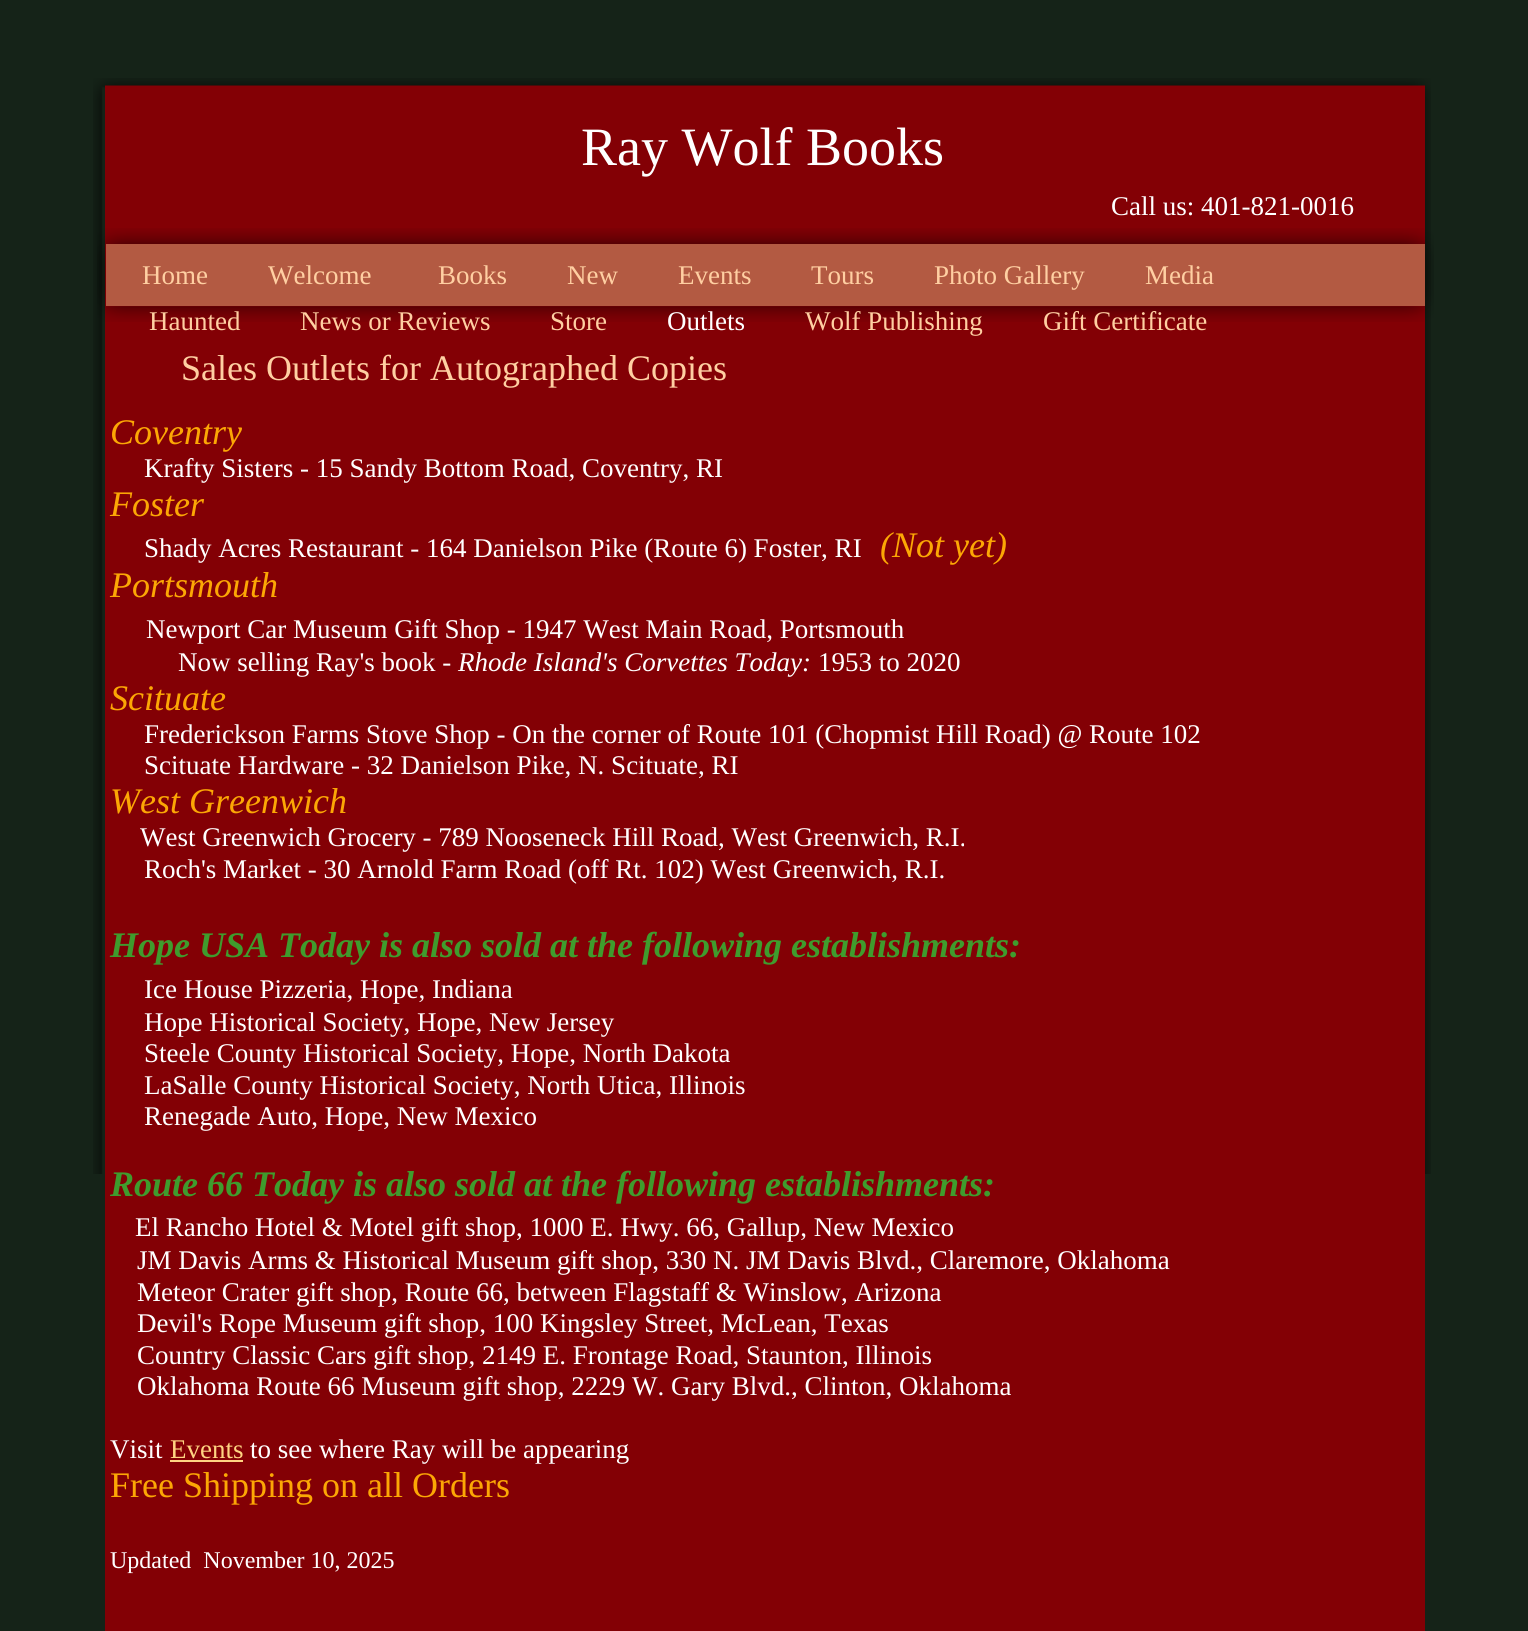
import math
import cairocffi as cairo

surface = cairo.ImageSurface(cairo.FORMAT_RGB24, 1528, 1631)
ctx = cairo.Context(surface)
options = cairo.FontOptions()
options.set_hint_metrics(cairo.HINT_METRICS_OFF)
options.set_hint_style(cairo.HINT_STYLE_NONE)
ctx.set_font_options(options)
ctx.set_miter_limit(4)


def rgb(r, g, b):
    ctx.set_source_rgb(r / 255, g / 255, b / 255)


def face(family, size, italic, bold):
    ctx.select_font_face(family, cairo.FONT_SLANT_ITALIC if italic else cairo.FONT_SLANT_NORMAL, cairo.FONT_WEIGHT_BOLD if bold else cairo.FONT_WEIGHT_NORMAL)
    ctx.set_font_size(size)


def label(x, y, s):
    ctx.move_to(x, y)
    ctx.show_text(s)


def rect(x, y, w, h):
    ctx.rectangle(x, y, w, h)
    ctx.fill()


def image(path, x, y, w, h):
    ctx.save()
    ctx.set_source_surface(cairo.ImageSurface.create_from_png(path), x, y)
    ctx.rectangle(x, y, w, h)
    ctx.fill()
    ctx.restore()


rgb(21, 35, 24)
ctx.paint()
image('image0.png', 93, 78, 1338, 1096)
rgb(131, 0, 5)
rect(105, 86, 1320, 1545)
ctx.set_source_rgba(0.514, 0, 0.016, 0.5)
rect(105, 85, 1320, 1)
face('Liberation Serif', 54, 0, 0)
rgb(255, 255, 255)
label(581, 165, 'Ray Wolf Books')
face('Liberation Serif', 27, 0, 0)
label(1111, 215, 'Call us: 401-821-0016')
image('image1.png', 97, 228, 1337, 94)
rgb(179, 90, 66)
rect(106, 244, 1319, 62)
rgb(255, 207, 162)
label(142, 284, 'Home')
label(268, 284, 'Welcome')
label(438, 284, 'Books')
label(567, 284, 'New')
label(678, 284, 'Events')
label(811, 284, 'Tours')
label(934, 284, 'Photo Gallery')
label(1145, 284, 'Media')
label(149, 330, 'Haunted')
label(300, 330, 'News or Reviews')
label(550, 330, 'Store')
rgb(255, 255, 255)
label(667, 330, 'Outlets')
rgb(255, 207, 162)
label(805, 330, 'Wolf Publishing')
label(1043, 330, 'Gift Certificate')
face('Liberation Serif', 36, 0, 0)
label(181, 380, 'Sales Outlets for Autographed Copies')
face('Liberation Serif', 36, 1, 0)
rgb(252, 167, 5)
label(110, 444, 'Coventry')
face('Liberation Serif', 27, 0, 0)
rgb(255, 255, 255)
label(144, 477, 'Krafty Sisters - 15 Sandy Bottom Road, Coventry, RI')
face('Liberation Serif', 36, 1, 0)
rgb(252, 167, 5)
label(110, 516, 'Foster')
face('Liberation Serif', 27, 0, 0)
rgb(255, 255, 255)
label(144, 557, 'Shady Acres Restaurant - 164 Danielson Pike (Route 6) Foster, RI')
face('Liberation Serif', 36, 1, 0)
rgb(252, 167, 5)
label(880, 557, '(Not yet)')
label(110, 597, 'Portsmouth')
face('Liberation Serif', 27, 0, 0)
rgb(255, 255, 255)
label(146, 638, 'Newport Car Museum Gift Shop - 1947 West Main Road, Portsmouth')
label(178, 671, 'Now selling Ray\'s book -')
face('Liberation Serif', 27, 1, 0)
label(458, 671, 'Rhode Island\'s Corvettes Today:')
face('Liberation Serif', 27, 0, 0)
label(818, 671, '1953 to 2020')
face('Liberation Serif', 36, 1, 0)
rgb(252, 167, 5)
label(110, 710, 'Scituate')
face('Liberation Serif', 27, 0, 0)
rgb(255, 255, 255)
label(144, 743, 'Frederickson Farms Stove Shop - On the corner of Route 101 (Chopmist Hill Road) @ Route 102')
label(144, 774, 'Scituate Hardware - 32 Danielson Pike, N. Scituate, RI')
face('Liberation Serif', 36, 1, 0)
rgb(252, 167, 5)
label(110, 813, 'West Greenwich')
face('Liberation Serif', 27, 0, 0)
rgb(255, 255, 255)
label(140, 846, 'West Greenwich Grocery - 789 Nooseneck Hill Road, West Greenwich, R.I.')
label(144, 878, 'Roch\'s Market - 30 Arnold Farm Road (off Rt. 102) West Greenwich, R.I.')
face('Liberation Serif', 36, 1, 1)
rgb(63, 156, 45)
label(110, 957, 'Hope USA Today is also sold at the following establishments:')
face('Liberation Serif', 27, 0, 0)
rgb(255, 255, 255)
label(144, 998, 'Ice House Pizzeria, Hope, Indiana')
label(144, 1031, 'Hope Historical Society, Hope, New Jersey')
label(144, 1062, 'Steele County Historical Society, Hope, North Dakota')
label(144, 1094, 'LaSalle County Historical Society, North Utica, Illinois')
label(144, 1125, 'Renegade Auto, Hope, New Mexico')
face('Liberation Serif', 36, 1, 1)
rgb(63, 156, 45)
label(110, 1196, 'Route 66 Today is also sold at the following establishments:')
face('Liberation Serif', 27, 0, 0)
rgb(255, 255, 255)
label(135, 1236, 'El Rancho Hotel & Motel gift shop, 1000 E. Hwy. 66, Gallup, New Mexico')
label(137, 1269, 'JM Davis Arms & Historical Museum gift shop, 330 N. JM Davis Blvd., Claremore, Oklahoma')
label(137, 1301, 'Meteor Crater gift shop, Route 66, between Flagstaff & Winslow, Arizona')
label(137, 1332, 'Devil\'s Rope Museum gift shop, 100 Kingsley Street, McLean, Texas')
label(137, 1364, 'Country Classic Cars gift shop, 2149 E. Frontage Road, Staunton, Illinois')
label(137, 1395, 'Oklahoma Route 66 Museum gift shop, 2229 W. Gary Blvd., Clinton, Oklahoma')
label(110, 1458, 'Visit')
rgb(255, 212, 130)
label(170, 1458, 'Events')
rect(170, 1460, 73, 2)
rgb(255, 255, 255)
label(250, 1458, 'to see where Ray will be appearing')
face('Liberation Serif', 36, 0, 0)
rgb(252, 167, 5)
label(110, 1497, 'Free Shipping on all Orders')
face('Liberation Serif', 24, 0, 0)
rgb(255, 255, 255)
label(110, 1568, 'Updated  November 10, 2025')
surface.write_to_png('render.png')
